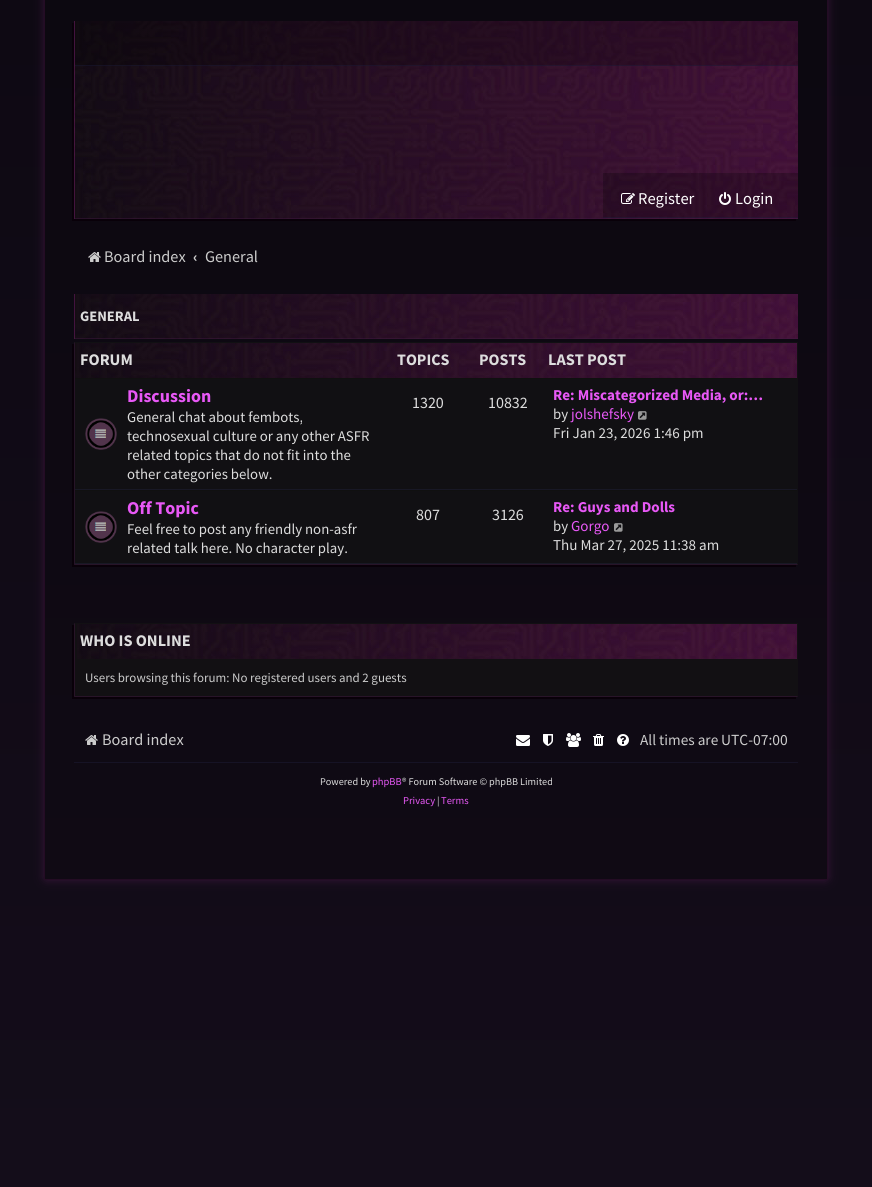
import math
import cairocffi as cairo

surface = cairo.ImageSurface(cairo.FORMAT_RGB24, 872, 1187)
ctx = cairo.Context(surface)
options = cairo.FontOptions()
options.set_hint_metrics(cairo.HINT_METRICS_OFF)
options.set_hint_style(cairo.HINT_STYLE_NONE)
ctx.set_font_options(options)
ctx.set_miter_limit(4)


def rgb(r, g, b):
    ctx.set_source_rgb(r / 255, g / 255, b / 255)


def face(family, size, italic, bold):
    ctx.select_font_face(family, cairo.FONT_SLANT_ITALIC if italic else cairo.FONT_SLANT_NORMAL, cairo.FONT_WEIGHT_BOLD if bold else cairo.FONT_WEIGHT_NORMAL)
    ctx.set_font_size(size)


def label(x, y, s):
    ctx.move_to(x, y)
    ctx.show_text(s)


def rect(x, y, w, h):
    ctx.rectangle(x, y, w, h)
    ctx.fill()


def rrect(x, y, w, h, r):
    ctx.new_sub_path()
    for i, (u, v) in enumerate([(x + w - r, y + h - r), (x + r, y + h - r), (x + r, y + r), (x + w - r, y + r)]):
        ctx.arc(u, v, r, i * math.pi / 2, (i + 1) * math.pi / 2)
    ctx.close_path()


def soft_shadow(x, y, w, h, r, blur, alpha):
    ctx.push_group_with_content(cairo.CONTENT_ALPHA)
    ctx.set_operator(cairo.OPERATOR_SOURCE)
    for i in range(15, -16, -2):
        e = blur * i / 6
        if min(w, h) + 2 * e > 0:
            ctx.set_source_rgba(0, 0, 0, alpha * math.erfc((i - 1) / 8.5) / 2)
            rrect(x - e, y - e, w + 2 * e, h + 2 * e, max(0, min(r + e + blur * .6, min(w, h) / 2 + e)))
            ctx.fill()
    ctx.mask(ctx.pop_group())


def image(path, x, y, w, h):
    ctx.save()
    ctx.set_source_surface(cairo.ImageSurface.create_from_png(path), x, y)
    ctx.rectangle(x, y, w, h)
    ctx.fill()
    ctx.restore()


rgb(255, 255, 255)
ctx.paint()
gradient = cairo.LinearGradient(436, 0, 436, 1187)
gradient.add_color_stop_rgba(0, 0.055, 0.035, 0.075, 1)
gradient.add_color_stop_rgba(1, 0.078, 0.051, 0.102, 1)
ctx.set_source(gradient)
rect(0, 0, 872, 1187)
gradient = cairo.LinearGradient(436, 0, 436, 1187)
gradient.add_color_stop_rgba(0, 0.047, 0.031, 0.063, 1)
gradient.add_color_stop_rgba(1, 0.067, 0.043, 0.086, 1)
ctx.set_source(gradient)
rect(45, 0, 782, 879)
ctx.save()
ctx.set_fill_rule(cairo.FILL_RULE_EVEN_ODD)
ctx.new_path()
ctx.move_to(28, 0)
ctx.line_to(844, 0)
ctx.line_to(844, 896)
ctx.line_to(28, 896)
ctx.close_path()
ctx.move_to(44, -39)
ctx.line_to(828, -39)
ctx.line_to(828, 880)
ctx.line_to(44, 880)
ctx.close_path()
ctx.clip()
rgb(72, 25, 72)
soft_shadow(46, -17, 780, 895, 0, 5.5, 1)
ctx.restore()
ctx.rectangle(44.5, -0.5, 783, 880)
rgb(36, 12, 36)
ctx.set_line_width(1)
ctx.stroke()
rgb(9, 0, 9)
ctx.new_path()
ctx.move_to(72, 23)
ctx.line_to(72, 221)
ctx.line_to(796, 221)
ctx.line_to(796, 219)
ctx.line_to(74, 219)
ctx.line_to(74, 23)
ctx.close_path()
ctx.fill()
image('image0.png', 74, 21, 724, 198)
ctx.set_source_rgba(0.282, 0.098, 0.282, 0.4)
ctx.new_path()
ctx.move_to(798, 219)
ctx.line_to(74, 219)
ctx.line_to(75, 218)
ctx.line_to(798, 218)
ctx.close_path()
ctx.fill()
ctx.new_path()
ctx.move_to(74, 219)
ctx.line_to(74, 21)
ctx.line_to(75, 21)
ctx.line_to(75, 218)
ctx.close_path()
ctx.fill()
ctx.set_source_rgba(0, 0, 0, 0.24)
rect(75, 21, 723, 45)
ctx.set_source_rgba(0.125, 0.125, 0.251, 0.4)
rect(75, 65, 723, 1)
ctx.set_source_rgba(0, 0, 0, 0.24)
rect(603, 173, 195, 45)
ctx.set_source_rgba(0.125, 0.125, 0.251, 0.4)
rect(603, 217, 195, 1)
image('image1.png', 621, 193, 14, 11)
face('Source Sans Pro', 16.5, 0, 0)
rgb(255, 255, 255)
label(638, 204, 'Register')
image('image2.png', 719, 192, 12, 13)
label(735, 204, 'Login')
image('image3.png', 88, 252, 13, 10)
face('Source Sans Pro', 16.25, 0, 0)
rgb(204, 204, 204)
label(104, 262, 'Board index')
face('Source Sans Pro', 15.5, 0, 1)
label(193, 262, '‹')
face('Source Sans Pro', 16.25, 0, 0)
label(205, 262, 'General')
image('image4.png', 74, 294, 724, 45)
ctx.set_source_rgba(0.282, 0.098, 0.282, 0.4)
ctx.new_path()
ctx.move_to(798, 339)
ctx.line_to(74, 339)
ctx.line_to(75, 338)
ctx.line_to(798, 338)
ctx.close_path()
ctx.fill()
ctx.new_path()
ctx.move_to(74, 339)
ctx.line_to(74, 294)
ctx.line_to(75, 294)
ctx.line_to(75, 338)
ctx.close_path()
ctx.fill()
face('Source Sans Pro', 14.5, 0, 1)
rgb(221, 221, 221)
label(80, 321, 'GENERAL')
rgb(9, 0, 9)
ctx.new_path()
ctx.move_to(72, 344)
ctx.line_to(72, 567)
ctx.line_to(796, 567)
ctx.line_to(796, 565)
ctx.line_to(74, 565)
ctx.line_to(74, 344)
ctx.close_path()
ctx.fill()
rgb(17, 16, 19)
rect(74, 342, 724, 223)
rgb(39, 20, 40)
ctx.new_path()
ctx.move_to(798, 565)
ctx.line_to(74, 565)
ctx.line_to(75, 564)
ctx.line_to(797, 564)
ctx.close_path()
ctx.fill()
ctx.set_source_rgba(0.282, 0.098, 0.282, 0.4)
ctx.new_path()
ctx.move_to(74, 565)
ctx.line_to(74, 342)
ctx.line_to(75, 343)
ctx.line_to(75, 564)
ctx.close_path()
ctx.fill()
image('image5.png', 75, 343, 722, 35)
face('Source Sans Pro', 16.25, 0, 1)
rgb(221, 221, 221)
label(80, 365, 'FORUM')
face('Source Sans Pro', 16, 0, 1)
label(397, 365, 'TOPICS')
label(479, 365, 'POSTS')
face('Source Sans Pro', 16.25, 0, 1)
label(548, 365, 'LAST POST')
rgb(16, 16, 16)
rect(75, 378, 722, 1)
rgb(24, 24, 37)
rect(75, 489, 722, 1)
image('image6.png', 85, 418, 32, 32)
face('Source Sans Pro', 18, 0, 1)
rgb(232, 88, 246)
label(127, 402, 'Discussion')
face('Source Sans Pro', 14.8, 0, 0)
rgb(221, 221, 221)
label(127, 422, 'General chat about fembots,')
label(127, 441, 'technosexual culture or any other ASFR')
label(127, 460, 'related topics that do not fit into the')
label(127, 479, 'other categories below.')
face('Source Sans Pro', 16, 0, 0)
label(412, 408, '1320')
label(488, 408, '10832')
face('Source Sans Pro', 15.1, 0, 1)
rgb(232, 88, 246)
label(553, 400, 'Re: Miscategorized Media, or:…')
face('Source Sans Pro', 14.8, 0, 0)
rgb(221, 221, 221)
label(553, 419, 'by')
face('Source Sans Pro', 15.1, 0, 0)
rgb(232, 88, 246)
label(571, 419, 'jolshefsky')
image('image7.png', 638, 411, 9, 9)
rgb(221, 221, 221)
label(553, 438, 'Fri Jan 23, 2026 1:46 pm')
rgb(16, 16, 16)
rect(75, 490, 722, 1)
rgb(24, 24, 37)
rect(75, 563, 722, 1)
image('image6.png', 85, 511, 32, 32)
face('Source Sans Pro', 18, 0, 1)
rgb(232, 88, 246)
label(127, 514, 'Off Topic')
face('Source Sans Pro', 14.8, 0, 0)
rgb(221, 221, 221)
label(127, 534, 'Feel free to post any friendly non-asfr')
label(127, 553, 'related talk here. No character play.')
face('Source Sans Pro', 16, 0, 0)
label(416, 520, '807')
label(492, 520, '3126')
face('Source Sans Pro', 15.1, 0, 1)
rgb(232, 88, 246)
label(553, 512, 'Re: Guys and Dolls')
face('Source Sans Pro', 14.8, 0, 0)
rgb(221, 221, 221)
label(553, 531, 'by')
face('Source Sans Pro', 15.1, 0, 0)
rgb(232, 88, 246)
label(571, 531, 'Gorgo')
image('image7.png', 614, 523, 9, 9)
rgb(221, 221, 221)
label(553, 550, 'Thu Mar 27, 2025 11:38 am')
rgb(9, 0, 9)
ctx.new_path()
ctx.move_to(72, 625)
ctx.line_to(72, 699)
ctx.line_to(796, 699)
ctx.line_to(796, 697)
ctx.line_to(74, 697)
ctx.line_to(74, 625)
ctx.close_path()
ctx.fill()
rgb(18, 16, 19)
rect(74, 623, 724, 74)
rgb(40, 20, 40)
ctx.new_path()
ctx.move_to(798, 697)
ctx.line_to(74, 697)
ctx.line_to(75, 696)
ctx.line_to(797, 696)
ctx.close_path()
ctx.fill()
ctx.set_source_rgba(0.282, 0.098, 0.282, 0.4)
ctx.new_path()
ctx.move_to(74, 697)
ctx.line_to(74, 623)
ctx.line_to(75, 624)
ctx.line_to(75, 696)
ctx.close_path()
ctx.fill()
image('image8.png', 77, 624, 720, 35)
face('Source Sans Pro', 16.25, 0, 1)
rgb(221, 221, 221)
label(80, 646, 'WHO IS ONLINE')
face('Source Sans Pro', 12.95, 0, 0)
rgb(204, 204, 204)
label(85, 682, 'Users browsing this forum: No registered users and 2 guests')
rgb(22, 19, 37)
rect(74, 762, 724, 1)
image('image9.png', 85, 735, 13, 10)
face('Source Sans Pro', 16.25, 0, 0)
rgb(204, 204, 204)
label(102, 745, 'Board index')
image('image10.png', 516, 735, 14, 11)
image('image11.png', 543, 734, 10, 12)
image('image12.png', 566, 733, 15, 14)
image('image13.png', 593, 734, 11, 12)
image('image14.png', 617, 734, 12, 12)
face('Source Sans Pro', 15.25, 0, 0)
label(640, 745, 'All times are')
face('Source Sans Pro', 15.5, 0, 0)
label(721, 745, 'UTC-07:00')
face('Source Sans Pro', 10.25, 0, 0)
rgb(221, 221, 221)
label(320, 785, 'Powered by')
face('Source Sans Pro', 10.5, 0, 0)
rgb(232, 88, 246)
label(372, 785, 'phpBB')
face('Source Sans Pro', 10.25, 0, 0)
rgb(221, 221, 221)
label(402, 785, '® Forum Software © phpBB Limited')
face('Source Sans Pro', 10.5, 0, 0)
rgb(232, 88, 246)
label(403, 804, 'Privacy')
face('Source Sans Pro', 10, 0, 0)
rgb(221, 221, 221)
label(437, 804, '|')
face('Source Sans Pro', 10.5, 0, 0)
rgb(232, 88, 246)
label(441, 804, 'Terms')
surface.write_to_png('render.png')
